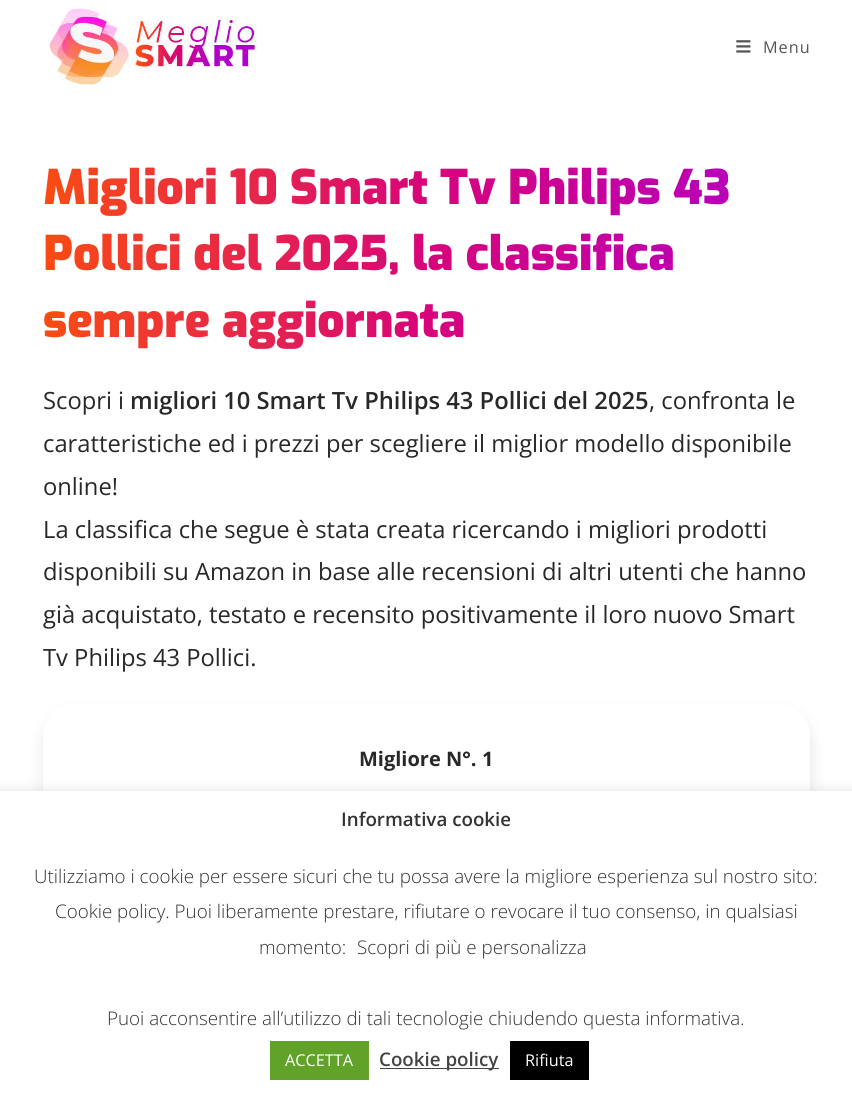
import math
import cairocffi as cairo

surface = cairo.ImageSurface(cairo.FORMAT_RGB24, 852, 1101)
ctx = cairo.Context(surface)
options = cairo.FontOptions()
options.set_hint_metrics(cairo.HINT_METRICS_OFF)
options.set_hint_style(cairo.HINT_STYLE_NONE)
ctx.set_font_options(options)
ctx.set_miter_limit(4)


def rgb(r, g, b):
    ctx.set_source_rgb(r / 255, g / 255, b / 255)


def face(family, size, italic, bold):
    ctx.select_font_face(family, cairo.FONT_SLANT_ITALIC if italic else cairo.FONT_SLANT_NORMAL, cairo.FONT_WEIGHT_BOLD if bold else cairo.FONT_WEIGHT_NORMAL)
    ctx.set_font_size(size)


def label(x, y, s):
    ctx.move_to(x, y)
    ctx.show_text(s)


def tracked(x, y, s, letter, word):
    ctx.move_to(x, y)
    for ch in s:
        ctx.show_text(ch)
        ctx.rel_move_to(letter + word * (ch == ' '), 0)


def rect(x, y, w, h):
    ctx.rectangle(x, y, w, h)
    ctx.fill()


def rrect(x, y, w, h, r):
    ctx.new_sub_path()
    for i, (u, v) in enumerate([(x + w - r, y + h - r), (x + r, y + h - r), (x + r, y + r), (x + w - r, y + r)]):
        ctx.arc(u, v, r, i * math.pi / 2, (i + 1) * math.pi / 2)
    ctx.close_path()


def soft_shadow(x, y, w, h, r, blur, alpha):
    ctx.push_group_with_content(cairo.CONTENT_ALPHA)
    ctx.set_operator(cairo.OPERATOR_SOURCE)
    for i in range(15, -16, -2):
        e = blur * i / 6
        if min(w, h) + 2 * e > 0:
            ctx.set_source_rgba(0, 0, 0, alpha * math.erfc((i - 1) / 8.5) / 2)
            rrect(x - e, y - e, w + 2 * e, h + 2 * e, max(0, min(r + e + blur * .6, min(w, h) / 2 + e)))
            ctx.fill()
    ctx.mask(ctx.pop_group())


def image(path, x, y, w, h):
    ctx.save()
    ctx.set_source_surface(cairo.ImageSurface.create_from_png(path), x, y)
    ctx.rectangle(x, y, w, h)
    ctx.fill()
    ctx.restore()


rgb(255, 255, 255)
ctx.paint()
image('image0.png', 47, 7, 210, 78)
image('image1.png', 736, 40, 15, 13)
face('Open Sans', 16.25, 0, 0)
rgb(85, 85, 85)
tracked(763, 53, 'Menu', 1, 0)
face('Exo Black', 47.5, 0, 0)
gradient = cairo.LinearGradient(43, 255, 810, 255)
gradient.add_color_stop_rgba(0, 0.976, 0.298, 0.071, 1)
gradient.add_color_stop_rgba(0.5, 0.843, 0.016, 0.482, 1)
gradient.add_color_stop_rgba(1, 0.698, 0, 0.788, 1)
ctx.set_source(gradient)
label(43, 204, 'Migliori 10 Smart Tv Philips 43')
label(43, 270, 'Pollici del 2025, la classifica')
label(43, 337, 'sempre aggiornata')
face('Open Sans', 23.75, 0, 0)
rgb(40, 40, 40)
label(43, 409, 'Scopri i')
face('Open Sans SemiBold', 23.75, 0, 0)
label(130, 409, 'migliori 10 Smart Tv Philips 43 Pollici del 2025')
face('Open Sans', 23.75, 0, 0)
label(649, 409, ', confronta le')
label(43, 452, 'caratteristiche ed i prezzi per scegliere il miglior modello disponibile')
label(43, 495, 'online!')
label(43, 538, 'La classifica che segue è stata creata ricercando i migliori prodotti')
label(43, 580, 'disponibili su Amazon in base alle recensioni di altri utenti che hanno')
label(43, 623, 'già acquistato, testato e recensito positivamente il loro nuovo Smart')
label(43, 666, 'Tv Philips 43 Pollici.')
rgb(117, 117, 117)
soft_shadow(50, 718, 755, 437, 25, 9.5, 0.39)
rgb(255, 255, 255)
rrect(43, 704, 767, 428, 31)
ctx.fill()
face('Open Sans', 20, 0, 1)
rgb(40, 40, 40)
label(359, 766, 'Migliore N°.')
label(482, 766, '1')
rgb(172, 171, 171)
soft_shadow(0, 790, 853, 310, 0, 6, 0.3)
rgb(255, 255, 255)
rect(0, 791, 852, 310)
face('Open Sans SemiBold', 18.75, 0, 0)
rgb(51, 51, 51)
label(341, 826, 'Informativa cookie')
face('Open Sans Light', 18.75, 0, 0)
label(34, 883, 'Utilizziamo i cookie per essere sicuri che tu possa avere la migliore esperienza sul nostro sito:')
label(55, 918, 'Cookie policy. Puoi liberamente prestare, rifiutare o revocare il tuo consenso, in qualsiasi')
label(259, 954, 'momento:')
label(357, 954, 'Scopri di più e personalizza')
label(107, 1025, 'Puoi acconsentire all’utilizzo di tali tecnologie chiudendo questa informativa.')
rgb(97, 162, 41)
rect(270, 1041, 99, 39)
face('Open Sans', 16.25, 0, 0)
rgb(255, 255, 255)
label(285, 1066, 'ACCETTA')
rgb(68, 68, 68)
rect(380, 1068, 119, 1)
face('Open Sans SemiBold', 18.75, 0, 0)
label(379, 1066, 'Cookie policy')
rgb(0, 0, 0)
rect(510, 1041, 79, 39)
face('Open Sans', 16.25, 0, 0)
rgb(255, 255, 255)
label(525, 1066, 'Rifiuta')
surface.write_to_png('render.png')
